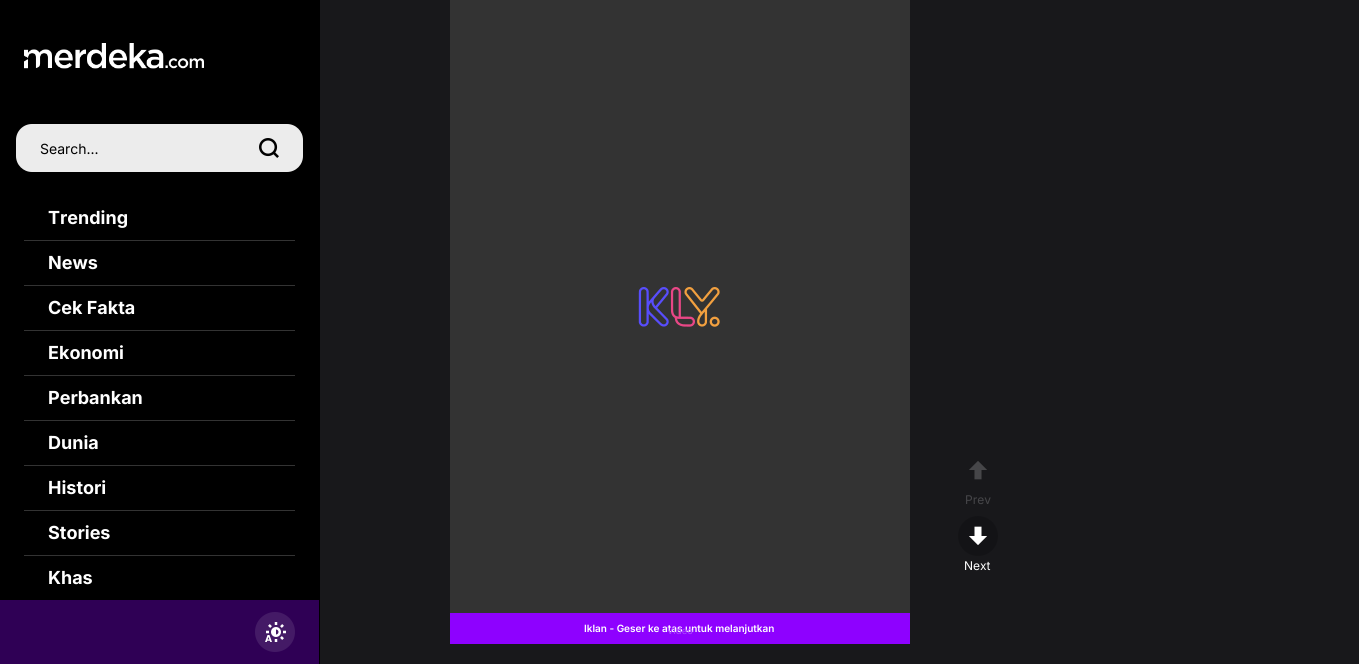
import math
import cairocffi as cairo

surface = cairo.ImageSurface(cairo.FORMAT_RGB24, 1359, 664)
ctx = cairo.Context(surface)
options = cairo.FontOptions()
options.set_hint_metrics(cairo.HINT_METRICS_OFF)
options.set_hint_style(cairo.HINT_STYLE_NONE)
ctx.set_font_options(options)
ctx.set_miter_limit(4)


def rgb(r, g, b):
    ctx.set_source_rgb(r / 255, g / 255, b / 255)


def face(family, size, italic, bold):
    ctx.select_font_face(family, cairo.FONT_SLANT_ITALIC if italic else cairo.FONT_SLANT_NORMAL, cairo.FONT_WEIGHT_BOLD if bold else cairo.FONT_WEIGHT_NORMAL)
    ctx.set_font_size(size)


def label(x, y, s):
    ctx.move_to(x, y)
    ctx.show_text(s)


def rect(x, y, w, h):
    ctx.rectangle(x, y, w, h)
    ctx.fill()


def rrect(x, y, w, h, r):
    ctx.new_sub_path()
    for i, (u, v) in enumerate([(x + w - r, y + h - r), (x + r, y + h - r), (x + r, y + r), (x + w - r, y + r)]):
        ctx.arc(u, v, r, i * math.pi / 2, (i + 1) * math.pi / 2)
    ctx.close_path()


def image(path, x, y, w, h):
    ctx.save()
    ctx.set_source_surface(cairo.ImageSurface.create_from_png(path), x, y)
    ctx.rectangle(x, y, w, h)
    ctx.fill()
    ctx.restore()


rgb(24, 24, 27)
ctx.paint()
rgb(0, 0, 0)
rect(0, 0, 319, 600)
rect(319, 0, 1, 664)
image('image0.png', 24, 43, 180, 26)
rgb(236, 236, 236)
rrect(16, 124, 287, 48, 16)
ctx.fill()
face('Inter', 14, 0, 0)
rgb(0, 0, 0)
label(40, 154, 'Search...')
image('image1.png', 259, 138, 20, 20)
rgb(51, 51, 51)
rect(24, 240, 271, 1)
face('Inter', 18, 0, 1)
rgb(255, 255, 255)
label(48, 224, 'Trending')
rgb(51, 51, 51)
rect(24, 285, 271, 1)
rgb(255, 255, 255)
label(48, 269, 'News')
rgb(51, 51, 51)
rect(24, 330, 271, 1)
rgb(255, 255, 255)
label(48, 314, 'Cek Fakta')
rgb(51, 51, 51)
rect(24, 375, 271, 1)
rgb(255, 255, 255)
label(48, 359, 'Ekonomi')
rgb(51, 51, 51)
rect(24, 420, 271, 1)
rgb(255, 255, 255)
label(48, 404, 'Perbankan')
rgb(51, 51, 51)
rect(24, 465, 271, 1)
rgb(255, 255, 255)
label(48, 449, 'Dunia')
rgb(51, 51, 51)
rect(24, 510, 271, 1)
rgb(255, 255, 255)
label(48, 494, 'Histori')
rgb(51, 51, 51)
rect(24, 555, 271, 1)
rgb(255, 255, 255)
label(48, 539, 'Stories')
label(48, 584, 'Khas')
rgb(47, 0, 85)
rect(0, 600, 319, 64)
rgb(68, 26, 102)
ctx.new_path()
ctx.arc(275, 632, 20, 0, 2 * math.pi)
ctx.fill()
image('image2.png', 265, 622, 21, 20)
image('image3.png', 969, 461, 18, 19)
face('Inter', 12, 0, 0)
rgb(70, 70, 73)
label(965, 504, 'Prev')
rgb(19, 19, 22)
ctx.new_path()
ctx.arc(978, 536, 20, 0, 2 * math.pi)
ctx.fill()
image('image4.png', 969, 526, 18, 19)
rgb(255, 255, 255)
label(964, 570, 'Next')
rgb(142, 1, 255)
rect(450, 613, 460, 31)
face('Inter SemiBold', 10, 0, 0)
rgb(255, 255, 255)
label(584, 632, 'Iklan - Geser ke atas untuk melanjutkan')
face('Inter', 9.5, 0, 0)
rgb(174, 74, 255)
label(667, 634, 'Video')
rgb(51, 51, 51)
rect(450, 0, 460, 613)
image('image5.png', 638, 287, 82, 40)
surface.write_to_png('render.png')
